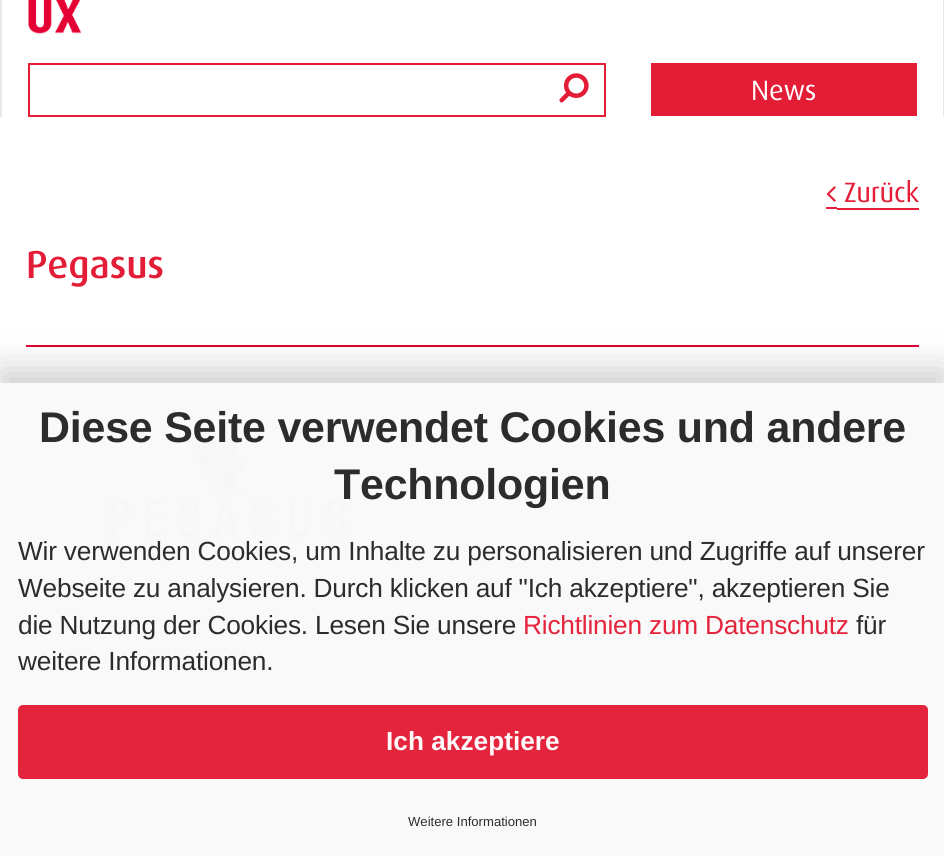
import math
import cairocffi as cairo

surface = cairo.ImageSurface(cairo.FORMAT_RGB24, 944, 856)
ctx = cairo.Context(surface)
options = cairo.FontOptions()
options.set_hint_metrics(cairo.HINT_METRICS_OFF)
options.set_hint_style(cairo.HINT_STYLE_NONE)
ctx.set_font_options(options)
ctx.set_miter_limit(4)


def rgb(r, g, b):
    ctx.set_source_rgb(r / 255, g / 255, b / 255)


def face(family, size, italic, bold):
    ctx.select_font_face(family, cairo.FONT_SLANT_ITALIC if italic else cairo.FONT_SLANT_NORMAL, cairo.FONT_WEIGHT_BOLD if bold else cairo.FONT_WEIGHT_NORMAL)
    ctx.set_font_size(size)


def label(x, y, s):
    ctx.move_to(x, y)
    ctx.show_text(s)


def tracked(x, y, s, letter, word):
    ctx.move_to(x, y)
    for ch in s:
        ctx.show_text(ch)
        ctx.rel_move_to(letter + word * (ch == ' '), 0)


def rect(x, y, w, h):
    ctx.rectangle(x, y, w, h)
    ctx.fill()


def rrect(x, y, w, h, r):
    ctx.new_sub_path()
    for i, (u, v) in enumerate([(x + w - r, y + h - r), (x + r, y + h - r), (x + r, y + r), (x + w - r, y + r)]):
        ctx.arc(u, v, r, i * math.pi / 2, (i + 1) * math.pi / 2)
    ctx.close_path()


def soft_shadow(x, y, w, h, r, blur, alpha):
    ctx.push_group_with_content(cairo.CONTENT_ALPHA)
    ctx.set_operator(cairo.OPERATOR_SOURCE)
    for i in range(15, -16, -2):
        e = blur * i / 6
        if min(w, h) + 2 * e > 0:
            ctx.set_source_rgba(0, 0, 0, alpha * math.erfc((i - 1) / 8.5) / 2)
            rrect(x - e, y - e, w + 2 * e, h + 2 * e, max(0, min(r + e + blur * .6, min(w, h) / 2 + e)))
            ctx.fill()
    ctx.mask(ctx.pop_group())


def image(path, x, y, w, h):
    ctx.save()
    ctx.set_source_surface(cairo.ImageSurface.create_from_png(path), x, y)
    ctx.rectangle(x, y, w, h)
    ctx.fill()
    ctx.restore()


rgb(255, 255, 255)
ctx.paint()
rgb(231, 231, 231)
rect(943, 0, 1, 117)
rect(0, 0, 2, 117)
image('image0.png', 28, 0, 54, 34)
ctx.rectangle(29, 64, 576, 52)
rgb(228, 29, 55)
ctx.stroke()
image('image1.png', 559, 73, 30, 30)
rect(651, 63, 266, 53)
face('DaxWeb', 28, 0, 0)
rgb(255, 255, 255)
tracked(751, 100, 'News', -0.2, 0)
rgb(228, 29, 55)
rect(826, 207, 11, 2)
rect(837, 208, 82, 2)
image('image2.png', 826, 186, 10, 16)
tracked(844, 202, 'Zurück', -0.2, 0)
face('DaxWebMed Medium', 39, 0, 0)
tracked(26, 278, 'Pegasus', -0.2, 0)
rgb(228, 1, 52)
rect(26, 345, 893, 2)
image('image3.png', 108, 438, 240, 123)
ctx.save()
ctx.set_fill_rule(cairo.FILL_RULE_EVEN_ODD)
ctx.new_path()
ctx.move_to(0, 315)
ctx.line_to(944, 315)
ctx.line_to(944, 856)
ctx.line_to(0, 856)
ctx.close_path()
ctx.move_to(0, 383)
ctx.line_to(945, 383)
ctx.line_to(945, 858)
ctx.line_to(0, 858)
ctx.close_path()
ctx.clip()
rgb(0, 0, 0)
soft_shadow(0, 369, 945, 475, 0, 17.5, 0.19)
ctx.restore()
ctx.set_source_rgba(0.976, 0.976, 0.976, 0.97)
rect(0, 383, 944, 473)
face('Liberation Sans', 42.9, 0, 1)
rgb(44, 44, 44)
tracked(39, 442, 'Diese Seite verwendet Cookies und andere', -0.2, 0)
tracked(334, 499, 'Technologien', -0.2, 0)
face('Liberation Sans', 26.25, 0, 0)
tracked(18, 560, 'Wir verwenden Cookies, um Inhalte zu personalisieren und Zugriffe auf unserer', -0.2, 0)
tracked(18, 597, 'Webseite zu analysieren. Durch klicken auf "Ich akzeptiere", akzeptieren Sie', -0.2, 0)
tracked(18, 634, 'die Nutzung der Cookies. Lesen Sie unsere', -0.2, 0)
rgb(229, 36, 61)
tracked(523, 634, 'Richtlinien zum Datenschutz', -0.2, 0)
rgb(44, 44, 44)
tracked(856, 634, 'für', -0.2, 0)
tracked(18, 670, 'weitere Informationen.', -0.2, 0)
ctx.set_source_rgba(0.894, 0.114, 0.216, 0.97)
rrect(18, 705, 910, 74, 5)
ctx.fill()
face('Liberation Sans', 26.25, 0, 1)
rgb(254, 248, 249)
label(386, 750, 'Ich akzeptiere')
face('Liberation Sans', 13.1, 0, 0)
rgb(44, 44, 44)
label(408, 826, 'Weitere Informationen')
surface.write_to_png('render.png')
